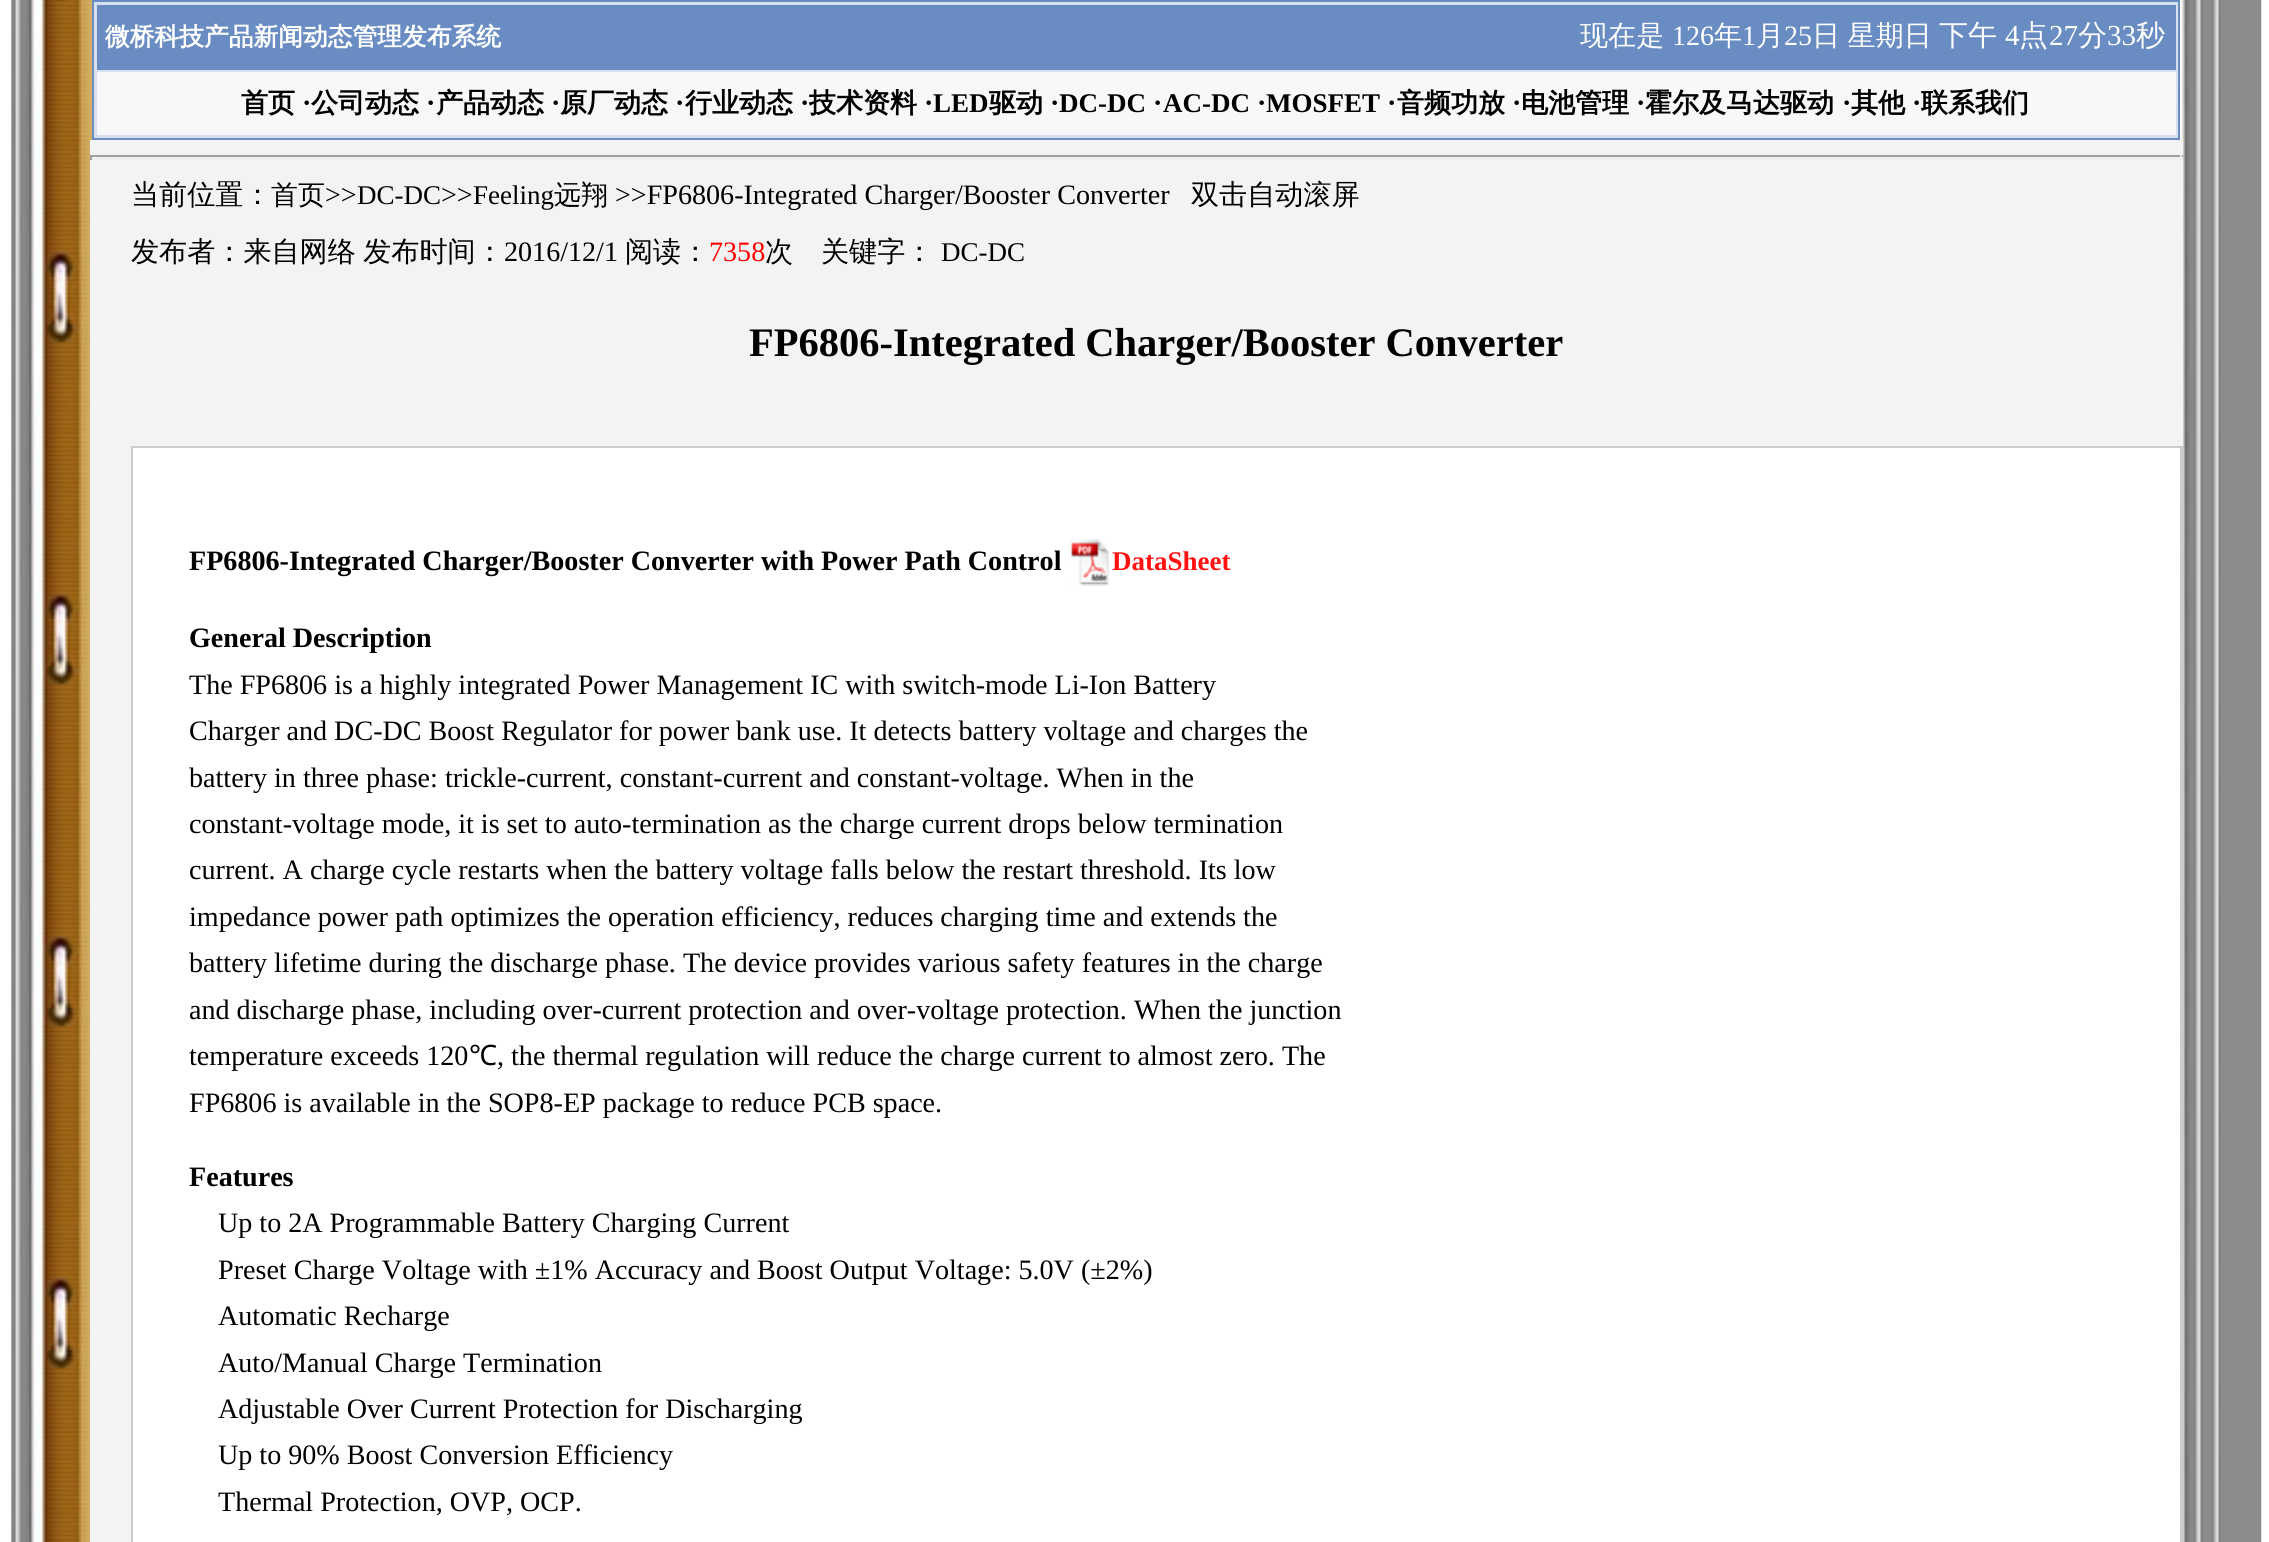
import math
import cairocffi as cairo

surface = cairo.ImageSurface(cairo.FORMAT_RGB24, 2269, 1542)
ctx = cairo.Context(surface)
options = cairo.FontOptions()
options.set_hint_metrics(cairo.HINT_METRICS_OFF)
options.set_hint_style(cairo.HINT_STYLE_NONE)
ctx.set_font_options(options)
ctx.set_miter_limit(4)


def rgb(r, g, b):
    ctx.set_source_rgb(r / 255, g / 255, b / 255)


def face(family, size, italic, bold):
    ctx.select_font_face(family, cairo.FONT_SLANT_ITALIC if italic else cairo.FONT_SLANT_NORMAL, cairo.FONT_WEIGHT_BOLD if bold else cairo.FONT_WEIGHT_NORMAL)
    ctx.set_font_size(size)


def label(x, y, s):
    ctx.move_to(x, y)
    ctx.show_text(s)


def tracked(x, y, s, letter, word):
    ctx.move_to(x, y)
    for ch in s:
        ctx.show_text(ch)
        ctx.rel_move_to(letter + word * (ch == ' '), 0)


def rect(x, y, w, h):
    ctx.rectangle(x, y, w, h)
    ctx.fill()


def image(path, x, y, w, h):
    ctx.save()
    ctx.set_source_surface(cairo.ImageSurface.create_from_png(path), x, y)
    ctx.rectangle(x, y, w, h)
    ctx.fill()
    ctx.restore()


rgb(255, 255, 255)
ctx.paint()
image('image0.png', 11, 0, 2251, 1542)
rgb(214, 224, 239)
ctx.rectangle(93, 1, 2086, 138)
ctx.fill_preserve()
rgb(105, 140, 195)
ctx.stroke()
rect(97, 5, 2079, 65)
face('WenQuanYi Zen Hei', 24.75, 0, 1)
rgb(255, 255, 255)
label(105, 45, '微桥科技产品新闻动态管理发布系统')
face('WenQuanYi Zen Hei Medium', 28.1, 0, 0)
label(1580, 45, '现在是')
face('Liberation Serif', 28.1, 0, 0)
label(1672, 45, '126')
face('WenQuanYi Zen Hei Medium', 28.1, 0, 0)
label(1714, 45, '年')
face('Liberation Serif', 28.1, 0, 0)
label(1742, 45, '1')
face('WenQuanYi Zen Hei Medium', 28.1, 0, 0)
label(1756, 45, '月')
face('Liberation Serif', 28.1, 0, 0)
label(1784, 45, '25')
face('WenQuanYi Zen Hei Medium', 28.1, 0, 0)
tracked(1812, 45, '日 星期日', 0, -1)
face('WenQuanYi Zen Hei Medium', 29, 0, 0)
label(1939, 45, '下午')
face('Liberation Serif', 29, 0, 0)
label(2005, 45, '4')
face('WenQuanYi Zen Hei Medium', 29, 0, 0)
label(2019, 45, '点')
face('Liberation Serif', 29, 0, 0)
label(2049, 45, '27')
face('WenQuanYi Zen Hei Medium', 29, 0, 0)
label(2078, 45, '分')
face('Liberation Serif', 29, 0, 0)
label(2107, 45, '33')
face('WenQuanYi Zen Hei Medium', 29, 0, 0)
label(2136, 45, '秒')
rgb(248, 248, 248)
rect(97, 72, 2079, 63)
face('WenQuanYi Zen Hei', 27, 0, 1)
rgb(0, 0, 0)
label(241, 112, '首页')
face('Liberation Serif', 28.1, 0, 1)
label(302, 112, '·')
face('WenQuanYi Zen Hei', 27, 0, 1)
label(311, 112, '公司动态')
face('Liberation Serif', 28.1, 0, 1)
label(426, 112, '·')
face('WenQuanYi Zen Hei', 27, 0, 1)
label(436, 112, '产品动态')
face('Liberation Serif', 28.1, 0, 1)
label(551, 112, '·')
face('WenQuanYi Zen Hei', 27, 0, 1)
label(560, 112, '原厂动态')
face('Liberation Serif', 28.1, 0, 1)
label(675, 112, '·')
face('WenQuanYi Zen Hei', 27, 0, 1)
label(685, 112, '行业动态')
face('Liberation Serif', 28.1, 0, 1)
label(800, 112, '·')
face('WenQuanYi Zen Hei', 27, 0, 1)
label(809, 112, '技术资料')
face('Liberation Serif', 28.1, 0, 1)
label(924, 112, '·')
face('Liberation Serif', 27, 0, 1)
label(933, 112, 'LED')
face('WenQuanYi Zen Hei', 27, 0, 1)
label(989, 112, '驱动')
face('Liberation Serif', 28.1, 0, 1)
label(1050, 112, '·')
face('Liberation Serif', 27, 0, 1)
label(1059, 112, 'DC-DC')
face('Liberation Serif', 28.1, 0, 1)
label(1153, 112, '·')
face('Liberation Serif', 27, 0, 1)
label(1163, 112, 'AC-DC')
face('Liberation Serif', 28.1, 0, 1)
label(1257, 112, '·')
face('Liberation Serif', 27, 0, 1)
label(1266, 112, 'MOSFET')
face('Liberation Serif', 28.1, 0, 1)
label(1387, 112, '·')
face('WenQuanYi Zen Hei', 27, 0, 1)
label(1397, 112, '音频功放')
face('Liberation Serif', 28.1, 0, 1)
label(1512, 112, '·')
face('WenQuanYi Zen Hei', 27, 0, 1)
label(1521, 112, '电池管理')
face('Liberation Serif', 28.1, 0, 1)
label(1636, 112, '·')
face('WenQuanYi Zen Hei', 27, 0, 1)
label(1645, 112, '霍尔及马达驱动')
face('Liberation Serif', 28.1, 0, 1)
label(1842, 112, '·')
face('WenQuanYi Zen Hei', 27, 0, 1)
label(1851, 112, '其他')
face('Liberation Serif', 28.1, 0, 1)
label(1912, 112, '·')
face('WenQuanYi Zen Hei', 27, 0, 1)
label(1921, 112, '联系我们')
rgb(243, 243, 243)
rect(90, 140, 2093, 1402)
rgb(159, 159, 159)
rect(90, 155, 2093, 2)
rgb(238, 238, 238)
rect(2180, 155, 2, 5)
rect(90, 158, 2093, 2)
rgb(159, 159, 159)
rect(90, 155, 2, 5)
face('WenQuanYi Zen Hei Medium', 28.1, 0, 0)
rgb(0, 0, 0)
label(131, 204, '当前位置：')
face('WenQuanYi Zen Hei Medium', 27, 0, 0)
label(271, 204, '首页')
face('Liberation Serif', 28.1, 0, 0)
label(325, 204, '>>')
face('Liberation Serif', 27, 0, 0)
label(357, 204, 'DC-DC')
face('Liberation Serif', 28.1, 0, 0)
label(441, 204, '>>')
face('Liberation Serif', 27, 0, 0)
label(473, 204, 'Feeling')
face('WenQuanYi Zen Hei Medium', 27, 0, 0)
label(554, 204, '远翔')
face('Liberation Serif', 28.1, 0, 0)
label(615, 204, '>>FP6806-Integrated Charger/Booster Converter')
face('WenQuanYi Zen Hei Medium', 28.1, 0, 0)
label(1191, 204, '双击自动滚屏')
tracked(131, 261, '发布者：来自网络 发布时间：', 0, -1)
face('Liberation Serif', 28.1, 0, 0)
label(504, 261, '2016/12/1')
face('WenQuanYi Zen Hei Medium', 28.1, 0, 0)
label(625, 261, '阅读：')
face('Liberation Serif', 28.1, 0, 0)
rgb(255, 0, 0)
label(709, 261, '7358')
face('WenQuanYi Zen Hei Medium', 28.1, 0, 0)
rgb(0, 0, 0)
label(765, 261, '次')
label(821, 261, '关键字：')
face('Liberation Serif', 27, 0, 0)
label(941, 261, 'DC-DC')
face('Liberation Serif', 40.5, 0, 1)
label(749, 356, 'FP6806-Integrated Charger/Booster Converter')
rgb(204, 204, 204)
rect(131, 446, 2052, 1096)
rgb(255, 255, 255)
rect(133, 448, 2047, 1094)
face('Liberation Serif', 28.1, 0, 1)
rgb(0, 0, 0)
label(189, 570, 'FP6806-Integrated Charger/Booster Converter with Power Path Control')
image('image1.png', 1069, 538, 41, 49)
face('Liberation Serif', 27, 0, 1)
rgb(255, 17, 17)
label(1112, 570, 'DataSheet')
face('Liberation Serif', 28.1, 0, 1)
rgb(0, 0, 0)
label(189, 647, 'General Description')
face('Liberation Serif', 28.1, 0, 0)
label(189, 694, 'The FP6806 is a highly integrated Power Management IC with switch-mode Li-Ion Battery')
label(189, 740, 'Charger and DC-DC Boost Regulator for power bank use. It detects battery voltage and charges the')
label(189, 787, 'battery in three phase: trickle-current, constant-current and constant-voltage. When in the')
label(189, 833, 'constant-voltage mode, it is set to auto-termination as the charge current drops below termination')
label(189, 879, 'current. A charge cycle restarts when the battery voltage falls below the restart threshold. Its low')
label(189, 926, 'impedance power path optimizes the operation efficiency, reduces charging time and extends the')
label(189, 972, 'battery lifetime during the discharge phase. The device provides various safety features in the charge')
label(189, 1019, 'and discharge phase, including over-current protection and over-voltage protection. When the junction')
label(189, 1065, 'temperature exceeds 120')
face('Noto Sans', 28.1, 0, 0)
label(469, 1065, '℃')
face('Liberation Serif', 28.1, 0, 0)
label(497, 1065, ', the thermal regulation will reduce the charge current to almost zero. The')
label(189, 1112, 'FP6806 is available in the SOP8-EP package to reduce PCB space.')
face('Liberation Serif', 28.1, 0, 1)
label(189, 1186, 'Features')
face('Liberation Serif', 28.1, 0, 0)
label(218, 1232, 'Up to 2A Programmable Battery Charging Current')
label(218, 1279, 'Preset Charge Voltage with ±1% Accuracy and Boost Output Voltage: 5.0V (±2%)')
label(218, 1325, 'Automatic Recharge')
label(218, 1372, 'Auto/Manual Charge Termination')
label(218, 1418, 'Adjustable Over Current Protection for Discharging')
label(218, 1464, 'Up to 90% Boost Conversion Efficiency')
label(218, 1511, 'Thermal Protection, OVP, OCP.')
surface.write_to_png('render.png')
